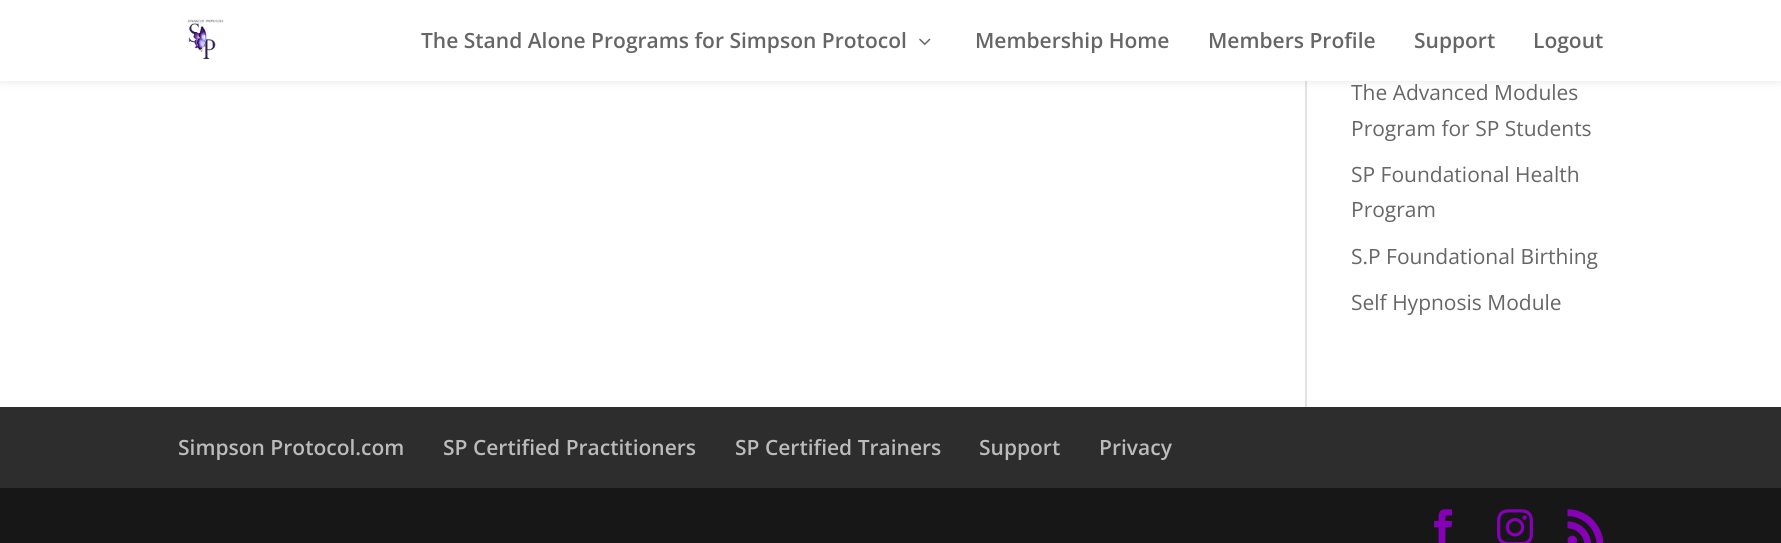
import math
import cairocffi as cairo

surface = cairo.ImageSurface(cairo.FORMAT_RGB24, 1781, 543)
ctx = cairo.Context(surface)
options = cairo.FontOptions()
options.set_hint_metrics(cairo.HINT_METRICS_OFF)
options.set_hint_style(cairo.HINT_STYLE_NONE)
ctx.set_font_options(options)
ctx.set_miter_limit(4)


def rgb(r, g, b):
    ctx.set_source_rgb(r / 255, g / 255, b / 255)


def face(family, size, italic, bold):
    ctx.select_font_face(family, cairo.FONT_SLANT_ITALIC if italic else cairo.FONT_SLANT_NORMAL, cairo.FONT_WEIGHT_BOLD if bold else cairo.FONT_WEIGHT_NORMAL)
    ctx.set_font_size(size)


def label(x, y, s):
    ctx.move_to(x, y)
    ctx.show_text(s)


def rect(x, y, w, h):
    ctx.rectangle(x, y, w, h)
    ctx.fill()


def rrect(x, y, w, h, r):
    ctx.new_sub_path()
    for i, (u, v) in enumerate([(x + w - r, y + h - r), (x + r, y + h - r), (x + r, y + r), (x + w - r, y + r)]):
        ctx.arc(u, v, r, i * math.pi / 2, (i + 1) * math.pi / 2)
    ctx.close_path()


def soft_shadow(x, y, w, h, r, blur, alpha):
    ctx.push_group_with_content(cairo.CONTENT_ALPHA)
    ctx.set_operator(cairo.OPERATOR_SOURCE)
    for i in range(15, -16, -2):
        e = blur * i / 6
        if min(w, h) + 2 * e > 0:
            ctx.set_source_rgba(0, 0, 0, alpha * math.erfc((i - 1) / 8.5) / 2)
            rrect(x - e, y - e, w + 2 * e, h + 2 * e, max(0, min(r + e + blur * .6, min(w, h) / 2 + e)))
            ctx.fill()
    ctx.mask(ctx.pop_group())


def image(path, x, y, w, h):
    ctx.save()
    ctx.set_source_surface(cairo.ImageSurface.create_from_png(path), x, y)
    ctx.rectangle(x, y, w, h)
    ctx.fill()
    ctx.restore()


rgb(255, 255, 255)
ctx.paint()
rgb(226, 226, 226)
rect(1305, 81, 2, 326)
rgb(0, 0, 0)
soft_shadow(0, 0, 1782, 81, 0, 5, 0.1)
rgb(255, 255, 255)
rect(0, 0, 1781, 81)
image('image0.png', 187, 19, 37, 40)
face('Open Sans SemiBold', 21, 0, 0)
rgb(102, 102, 102)
label(421, 48, 'The Stand Alone Programs for Simpson Protocol')
image('image1.png', 919, 38, 12, 7)
label(975, 48, 'Membership Home')
label(1208, 48, 'Members Profile')
label(1414, 48, 'Support')
label(1533, 48, 'Logout')
face('Open Sans', 21, 0, 0)
label(1351, 100, 'The Advanced Modules')
label(1351, 136, 'Program for SP Students')
label(1351, 182, 'SP Foundational Health')
label(1351, 217, 'Program')
label(1351, 264, 'S.P Foundational Birthing')
label(1351, 310, 'Self Hypnosis Module')
rgb(45, 45, 45)
rect(0, 407, 1781, 81)
face('Open Sans SemiBold', 21, 0, 0)
rgb(187, 187, 187)
label(178, 455, 'Simpson Protocol.com')
label(443, 455, 'SP Certified Practitioners')
label(735, 455, 'SP Certified Trainers')
label(979, 455, 'Support')
label(1099, 455, 'Privacy')
rgb(23, 23, 23)
rect(0, 488, 1781, 55)
image('image2.png', 1434, 509, 19, 34)
image('image3.png', 1497, 509, 36, 34)
image('image4.png', 1567, 509, 37, 34)
surface.write_to_png('render.png')
